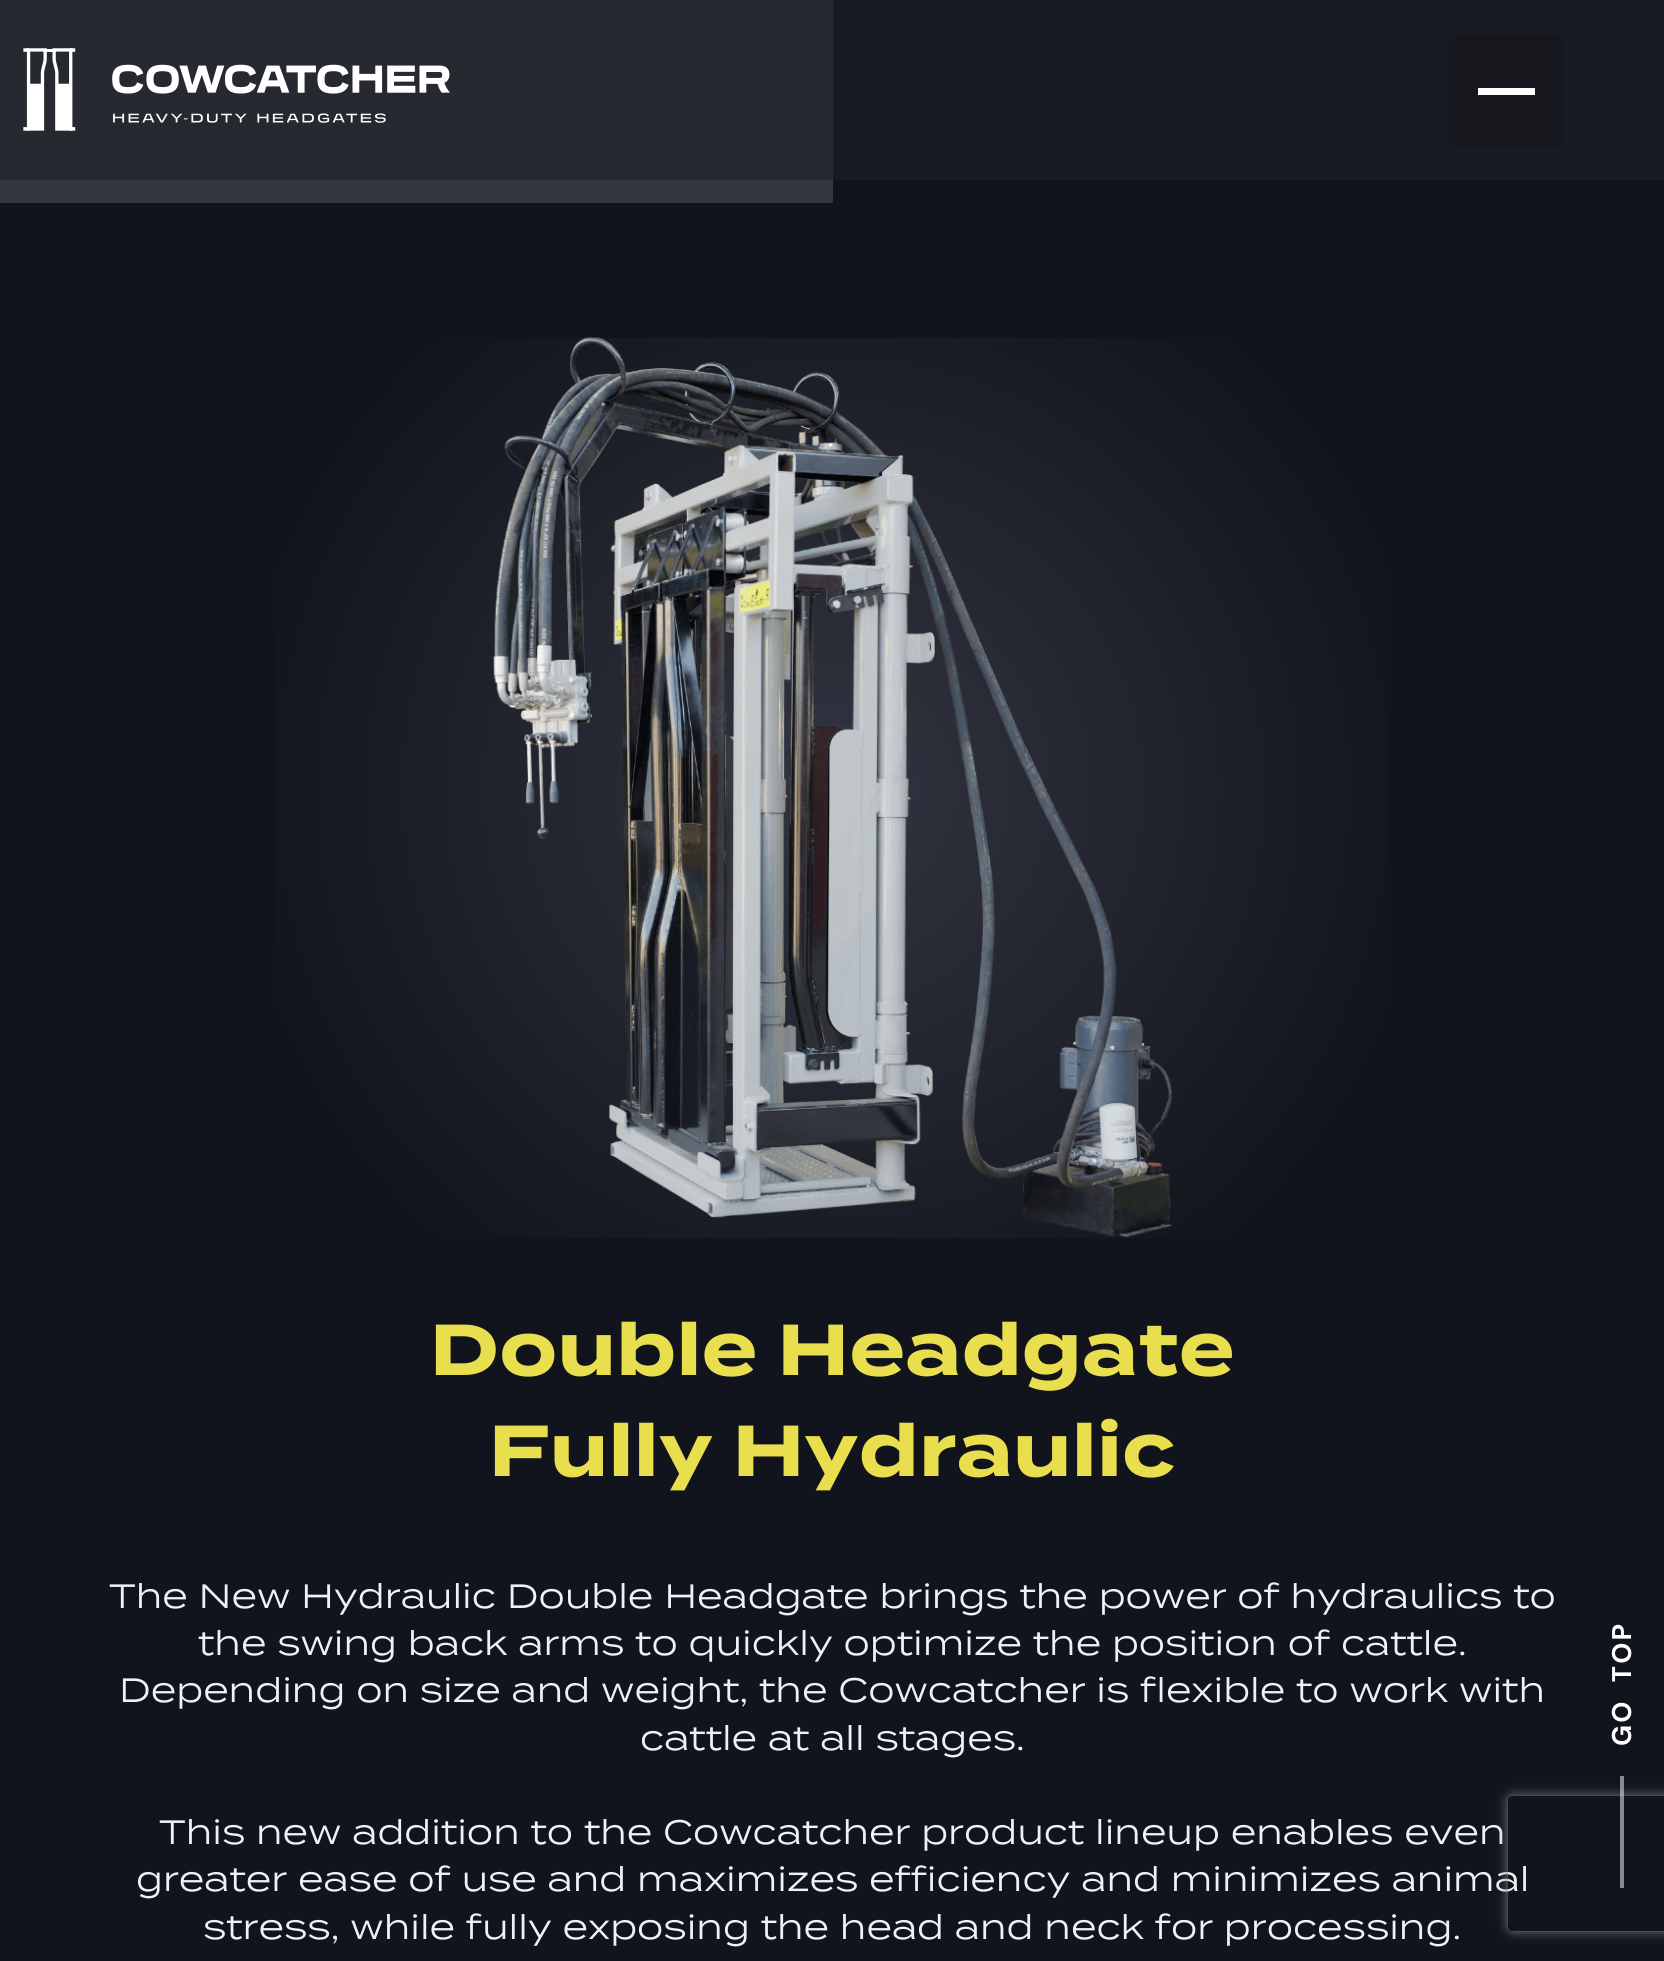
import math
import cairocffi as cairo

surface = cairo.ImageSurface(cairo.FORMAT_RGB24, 1664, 1961)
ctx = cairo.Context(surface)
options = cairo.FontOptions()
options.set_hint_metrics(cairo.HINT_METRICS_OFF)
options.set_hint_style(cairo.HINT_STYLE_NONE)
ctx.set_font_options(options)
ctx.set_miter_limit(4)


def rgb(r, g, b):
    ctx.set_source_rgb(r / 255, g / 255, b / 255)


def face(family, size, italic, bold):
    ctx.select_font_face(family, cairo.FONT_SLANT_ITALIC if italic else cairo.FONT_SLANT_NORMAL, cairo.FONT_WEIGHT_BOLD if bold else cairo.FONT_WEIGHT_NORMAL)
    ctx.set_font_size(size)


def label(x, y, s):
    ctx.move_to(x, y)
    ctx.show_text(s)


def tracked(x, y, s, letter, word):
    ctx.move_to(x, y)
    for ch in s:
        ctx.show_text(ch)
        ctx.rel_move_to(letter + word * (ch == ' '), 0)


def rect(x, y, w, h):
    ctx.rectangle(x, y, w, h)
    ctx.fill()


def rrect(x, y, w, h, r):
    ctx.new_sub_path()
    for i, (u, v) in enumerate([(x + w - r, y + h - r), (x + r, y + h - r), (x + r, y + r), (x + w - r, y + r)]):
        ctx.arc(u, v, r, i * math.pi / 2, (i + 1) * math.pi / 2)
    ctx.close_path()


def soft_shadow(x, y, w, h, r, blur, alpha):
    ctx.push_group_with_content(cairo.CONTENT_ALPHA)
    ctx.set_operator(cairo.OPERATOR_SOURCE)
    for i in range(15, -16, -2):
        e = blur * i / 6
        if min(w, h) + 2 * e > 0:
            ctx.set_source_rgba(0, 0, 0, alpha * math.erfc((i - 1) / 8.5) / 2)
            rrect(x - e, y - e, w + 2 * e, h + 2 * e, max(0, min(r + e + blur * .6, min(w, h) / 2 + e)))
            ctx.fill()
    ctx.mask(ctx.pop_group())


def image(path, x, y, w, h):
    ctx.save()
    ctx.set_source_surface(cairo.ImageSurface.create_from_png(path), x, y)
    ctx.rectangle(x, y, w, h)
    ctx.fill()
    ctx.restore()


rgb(18, 20, 29)
ctx.paint()
rgb(25, 27, 36)
rect(833, 0, 831, 180)
rgb(52, 55, 61)
rect(0, 180, 833, 23)
rgb(39, 41, 48)
rect(0, 0, 833, 180)
image('image0.png', 23, 48, 427, 83)
rgb(23, 24, 30)
rect(1449, 34, 113, 112)
rgb(255, 255, 255)
rect(1478, 88, 57, 7)
gradient = cairo.RadialGradient(833, 788, 0, 833, 788, 874)
gradient.add_color_stop_rgba(0, 0.196, 0.208, 0.255, 1)
gradient.add_color_stop_rgba(0.69, 0.071, 0.078, 0.11, 1)
ctx.set_source(gradient)
rect(276, 338, 1114, 900)
image('image1.png', 492, 337, 681, 901)
face('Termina', 72, 0, 1)
rgb(233, 222, 77)
tracked(430, 1375, 'Double Headgate', 0.7, 0)
tracked(489, 1476, 'Fully Hydraulic', 0.7, 0)
face('Termina', 33.75, 0, 0)
rgb(237, 242, 245)
label(109, 1608, 'The New Hydraulic Double Headgate brings the power of hydraulics to')
label(198, 1655, 'the swing back arms to quickly optimize the position of cattle.')
label(119, 1702, 'Depending on size and weight, the Cowcatcher is flexible to work with')
label(640, 1750, 'cattle at all stages.')
label(159, 1844, 'This new addition to the Cowcatcher product lineup enables even')
label(136, 1891, 'greater ease of use and maximizes efficiency and minimizes animal')
label(203, 1939, 'stress, while fully exposing the head and neck for processing.')
face('DM Sans', 27, 0, 1)
rgb(255, 255, 255)
ctx.save()
ctx.translate(1631, 1746)
ctx.rotate(-90 * math.pi / 180)
tracked(0, 0, 'GO  TOP', 2.25, 0)
ctx.restore()
ctx.save()
ctx.set_fill_rule(cairo.FILL_RULE_EVEN_ODD)
ctx.new_path()
ctx.move_to(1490, 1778)
ctx.line_to(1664, 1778)
ctx.line_to(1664, 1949)
ctx.line_to(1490, 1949)
ctx.close_path()
ctx.move_to(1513, 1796)
ctx.line_to(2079, 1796)
ctx.curve_to(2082, 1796, 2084, 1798, 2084, 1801)
ctx.line_to(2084, 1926)
ctx.curve_to(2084, 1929, 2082, 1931, 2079, 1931)
ctx.line_to(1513, 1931)
ctx.curve_to(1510, 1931, 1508, 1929, 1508, 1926)
ctx.line_to(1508, 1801)
ctx.curve_to(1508, 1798, 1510, 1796, 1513, 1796)
ctx.close_path()
ctx.clip()
rgb(128, 128, 128)
soft_shadow(1508, 1796, 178, 135, 5, 5.5, 1)
ctx.restore()
ctx.set_source_rgba(1, 1, 1, 0.5)
rect(1620, 1776, 4, 112)
surface.write_to_png('render.png')
